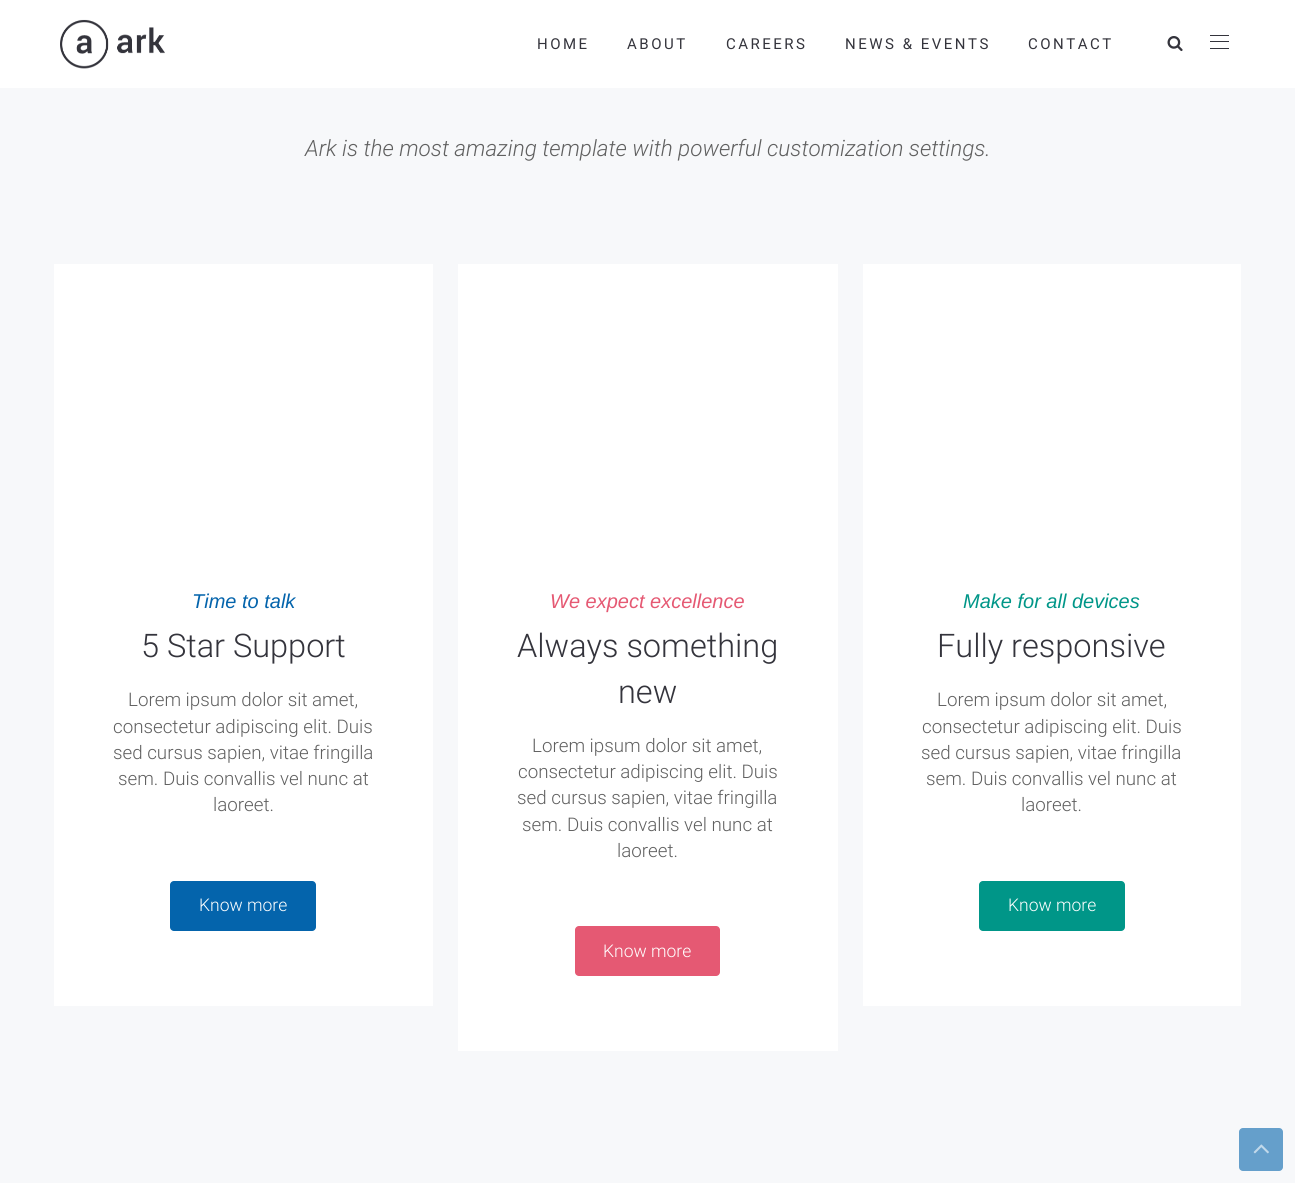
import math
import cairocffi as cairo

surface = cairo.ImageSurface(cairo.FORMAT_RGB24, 1295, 1183)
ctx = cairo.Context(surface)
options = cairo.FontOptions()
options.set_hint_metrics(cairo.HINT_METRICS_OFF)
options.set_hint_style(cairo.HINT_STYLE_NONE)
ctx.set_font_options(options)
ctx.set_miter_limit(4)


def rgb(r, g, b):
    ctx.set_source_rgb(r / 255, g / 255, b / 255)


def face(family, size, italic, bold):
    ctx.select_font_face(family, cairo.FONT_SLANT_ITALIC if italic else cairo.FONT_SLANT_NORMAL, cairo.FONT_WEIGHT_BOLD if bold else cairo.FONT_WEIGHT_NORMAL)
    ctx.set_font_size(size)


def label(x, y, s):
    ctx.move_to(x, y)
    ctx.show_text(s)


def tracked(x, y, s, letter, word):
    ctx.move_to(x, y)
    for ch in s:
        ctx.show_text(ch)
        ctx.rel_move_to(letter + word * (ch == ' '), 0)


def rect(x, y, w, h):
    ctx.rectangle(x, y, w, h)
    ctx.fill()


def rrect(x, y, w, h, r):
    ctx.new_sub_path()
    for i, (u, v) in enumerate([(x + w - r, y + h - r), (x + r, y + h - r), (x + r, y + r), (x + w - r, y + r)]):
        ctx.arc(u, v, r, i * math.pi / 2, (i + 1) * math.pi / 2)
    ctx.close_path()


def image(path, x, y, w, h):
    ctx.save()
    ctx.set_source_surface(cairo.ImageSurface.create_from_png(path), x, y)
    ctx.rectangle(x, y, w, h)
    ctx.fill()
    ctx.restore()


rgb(247, 248, 250)
ctx.paint()
rgb(255, 255, 255)
rect(0, 0, 1295, 88)
image('image0.png', 60, 19, 105, 50)
image('image1.png', 1167, 36, 16, 16)
rgb(52, 52, 60)
rect(1210, 48, 19, 1)
rect(1210, 35, 19, 1)
rect(1210, 41, 19, 1)
face('Roboto', 15, 0, 0)
tracked(537, 49, 'HOME', 2.5, 0)
tracked(627, 49, 'ABOUT', 2.5, 0)
tracked(726, 49, 'CAREERS', 2.5, 0)
tracked(845, 49, 'NEWS & EVENTS', 2.5, 0)
tracked(1028, 49, 'CONTACT', 2.5, 0)
face('Roboto Light', 22.5, 1, 0)
rgb(96, 96, 96)
label(305, 156, 'Ark is the most amazing template with powerful customization settings.')
rgb(255, 255, 255)
rect(54, 264, 379, 742)
face('Liberation Sans', 20, 1, 0)
rgb(4, 100, 172)
label(192, 608, 'Time to talk')
face('Roboto Light', 32.5, 0, 0)
rgb(52, 52, 60)
label(141, 657, '5 Star Support')
face('Roboto Light', 18.75, 0, 0)
rgb(96, 96, 96)
label(128, 706, 'Lorem ipsum dolor sit amet,')
label(113, 733, 'consectetur adipiscing elit. Duis')
label(113, 759, 'sed cursus sapien, vitae fringilla')
label(118, 785, 'sem. Duis convallis vel nunc at')
label(213, 811, 'laoreet.')
rgb(4, 100, 172)
rrect(170, 881, 146, 50, 4)
ctx.fill()
face('Roboto Light', 17.5, 0, 0)
rgb(255, 255, 255)
label(199, 911, 'Know more')
rect(458, 264, 380, 787)
face('Liberation Sans', 20, 1, 0)
rgb(229, 89, 115)
label(550, 608, 'We expect excellence')
face('Roboto Light', 32.5, 0, 0)
rgb(52, 52, 60)
label(517, 657, 'Always something')
label(618, 703, 'new')
face('Roboto Light', 18.75, 0, 0)
rgb(96, 96, 96)
label(532, 752, 'Lorem ipsum dolor sit amet,')
label(518, 778, 'consectetur adipiscing elit. Duis')
label(517, 804, 'sed cursus sapien, vitae fringilla')
label(522, 831, 'sem. Duis convallis vel nunc at')
label(617, 857, 'laoreet.')
rgb(229, 89, 115)
rrect(575, 926, 145, 50, 4)
ctx.fill()
face('Roboto Light', 17.5, 0, 0)
rgb(255, 255, 255)
label(603, 957, 'Know more')
rect(863, 264, 378, 742)
face('Liberation Sans', 20, 1, 0)
rgb(0, 150, 136)
label(963, 608, 'Make for all devices')
face('Roboto Light', 32.5, 0, 0)
rgb(52, 52, 60)
label(937, 657, 'Fully responsive')
face('Roboto Light', 18.75, 0, 0)
rgb(96, 96, 96)
label(937, 706, 'Lorem ipsum dolor sit amet,')
label(922, 733, 'consectetur adipiscing elit. Duis')
label(921, 759, 'sed cursus sapien, vitae fringilla')
label(926, 785, 'sem. Duis convallis vel nunc at')
label(1021, 811, 'laoreet.')
rgb(0, 150, 136)
rrect(979, 881, 146, 50, 4)
ctx.fill()
face('Roboto Light', 17.5, 0, 0)
rgb(255, 255, 255)
label(1008, 911, 'Know more')
rgb(101, 159, 203)
rrect(1239, 1128, 44, 43, 4)
ctx.fill()
image('image2.png', 1253, 1144, 16, 10)
surface.write_to_png('render.png')
